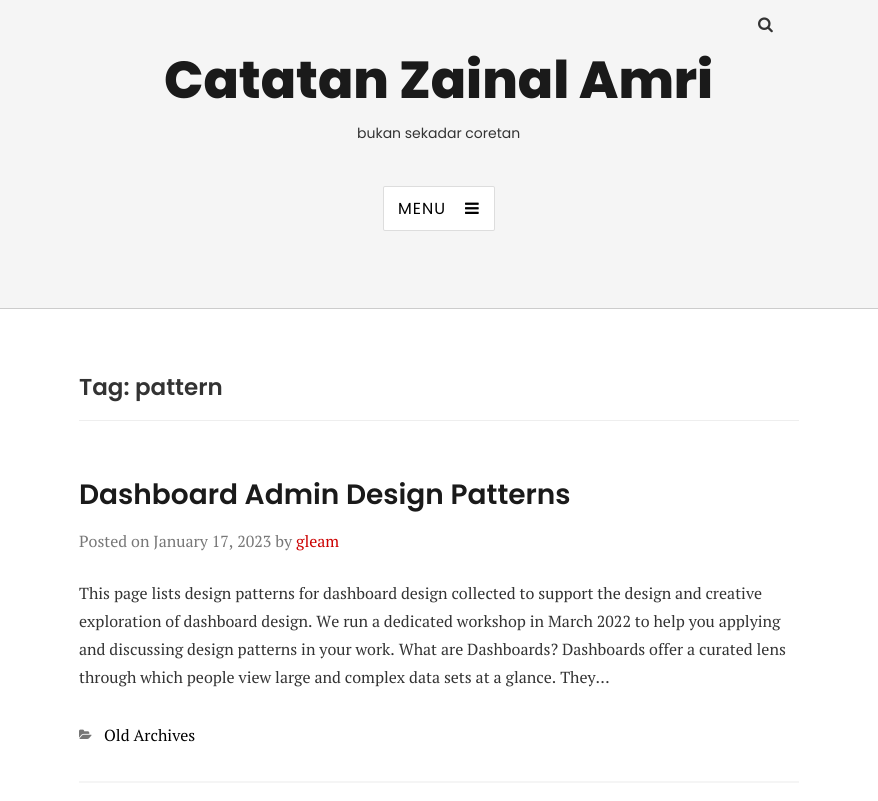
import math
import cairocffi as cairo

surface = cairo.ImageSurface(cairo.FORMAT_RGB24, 878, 801)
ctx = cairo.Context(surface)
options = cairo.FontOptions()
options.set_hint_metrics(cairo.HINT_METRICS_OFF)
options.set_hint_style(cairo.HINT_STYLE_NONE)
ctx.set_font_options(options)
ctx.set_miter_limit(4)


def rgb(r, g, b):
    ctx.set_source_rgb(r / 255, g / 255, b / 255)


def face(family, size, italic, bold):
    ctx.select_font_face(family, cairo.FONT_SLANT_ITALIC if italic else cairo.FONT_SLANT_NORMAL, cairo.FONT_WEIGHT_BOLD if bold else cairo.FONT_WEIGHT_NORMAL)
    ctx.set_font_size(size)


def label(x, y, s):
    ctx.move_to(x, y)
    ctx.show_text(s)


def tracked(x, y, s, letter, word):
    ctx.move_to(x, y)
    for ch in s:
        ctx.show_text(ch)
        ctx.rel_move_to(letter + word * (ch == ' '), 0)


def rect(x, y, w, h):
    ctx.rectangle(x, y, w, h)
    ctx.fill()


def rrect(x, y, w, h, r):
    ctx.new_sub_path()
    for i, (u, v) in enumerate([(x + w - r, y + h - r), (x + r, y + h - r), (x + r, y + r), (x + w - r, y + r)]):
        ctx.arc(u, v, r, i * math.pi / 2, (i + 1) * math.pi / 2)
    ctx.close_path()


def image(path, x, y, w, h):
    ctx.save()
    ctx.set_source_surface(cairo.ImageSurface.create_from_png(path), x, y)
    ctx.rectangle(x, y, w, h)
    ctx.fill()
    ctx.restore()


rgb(255, 255, 255)
ctx.paint()
rgb(245, 245, 245)
rect(0, 0, 878, 308)
rgb(204, 204, 204)
rect(0, 308, 878, 1)
image('image0.png', 758, 17, 15, 16)
face('Poppins ExtraBold', 52, 0, 0)
rgb(26, 26, 26)
label(164, 98, 'Catatan Zainal Amri')
face('Poppins', 14, 0, 0)
rgb(51, 51, 51)
label(357, 138, 'bukan sekadar coretan')
rgb(255, 255, 255)
rrect(383.5, 186.5, 111, 44, 1.5)
ctx.fill_preserve()
rgb(221, 221, 221)
ctx.set_line_width(1)
ctx.stroke()
face('Poppins', 16, 0, 0)
rgb(0, 0, 0)
tracked(398, 214, 'MENU', 1, 0)
image('image1.png', 465, 202, 14, 12)
rgb(238, 238, 238)
rect(79, 420, 720, 1)
face('Poppins SemiBold', 23, 0, 0)
rgb(51, 51, 51)
label(79, 395, 'Tag: pattern')
rgb(245, 245, 245)
rect(79, 781, 720, 2)
face('Poppins SemiBold', 28, 0, 0)
rgb(26, 26, 26)
label(79, 504, 'Dashboard Admin Design Patterns')
face('PT Serif', 16, 0, 0)
rgb(119, 119, 119)
label(79, 547, 'Posted on January 17, 2023 by')
rgb(204, 0, 0)
label(296, 547, 'gleam')
rgb(51, 51, 51)
label(79, 599, 'This page lists design patterns for dashboard design collected to support the design and creative')
label(79, 627, 'exploration of dashboard design. We run a dedicated workshop in March 2022 to help you applying')
label(79, 655, 'and discussing design patterns in your work. What are Dashboards? Dashboards offer a curated lens')
label(79, 683, 'through which people view large and complex data sets at a glance. They…')
image('image2.png', 79, 729, 13, 10)
rgb(0, 0, 0)
label(104, 741, 'Old Archives')
surface.write_to_png('render.png')
